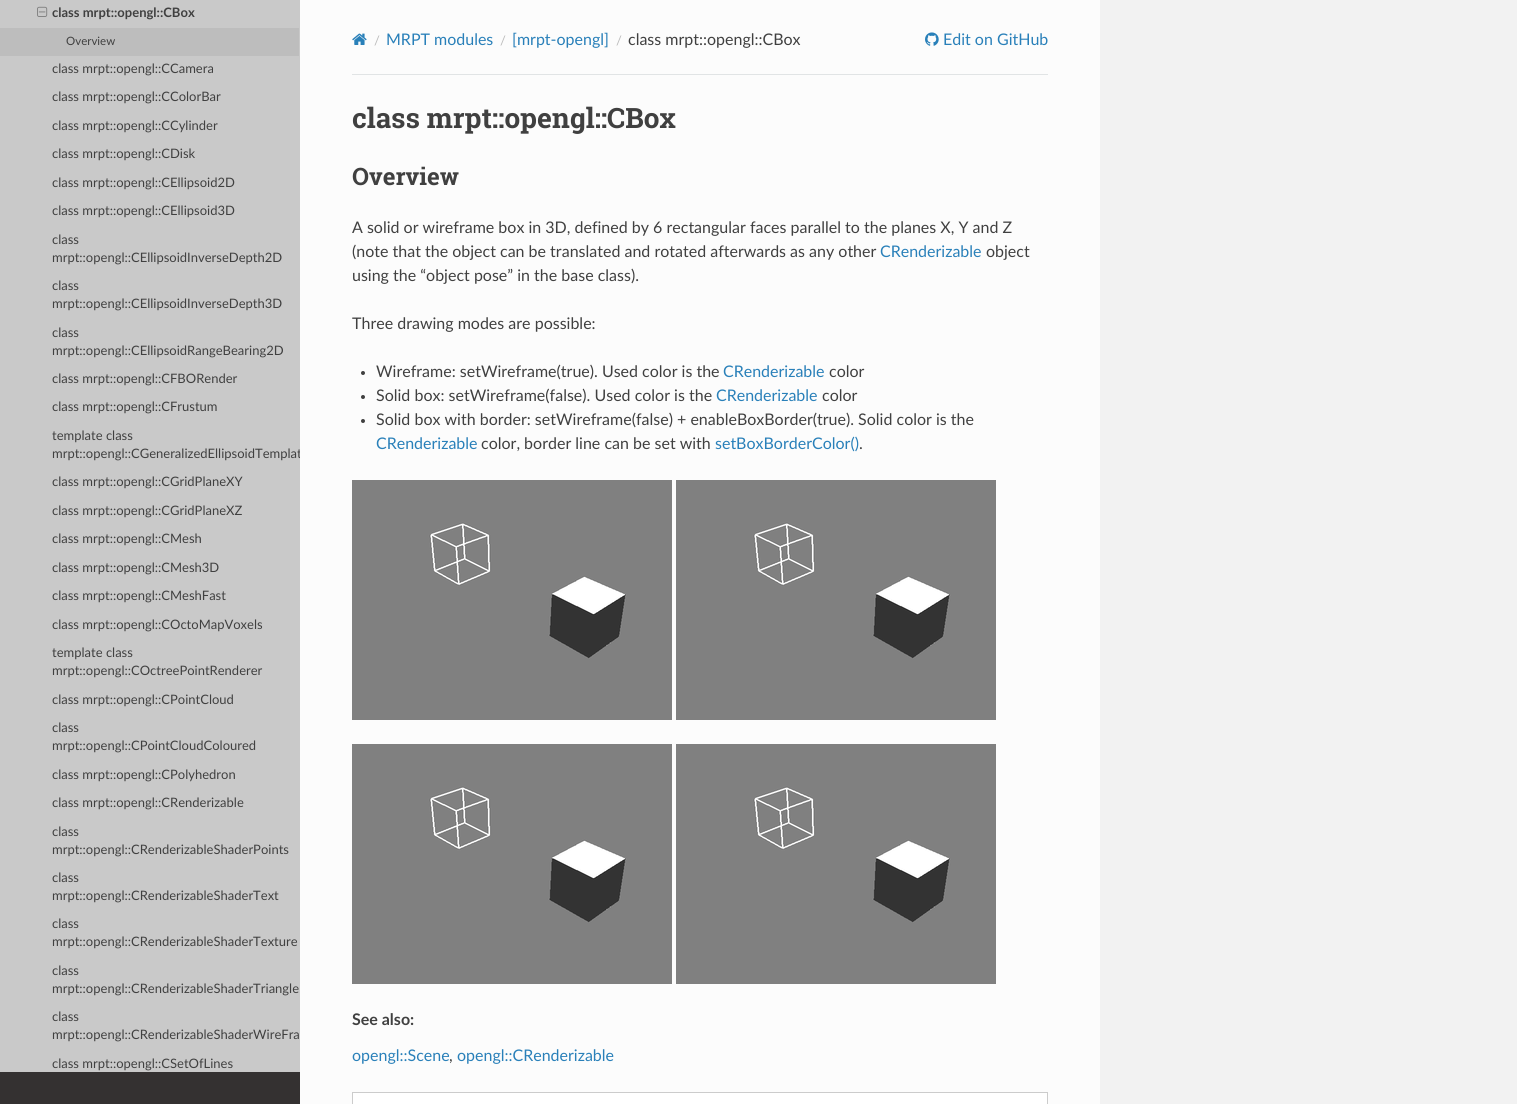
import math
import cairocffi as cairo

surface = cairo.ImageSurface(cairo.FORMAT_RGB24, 1517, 1104)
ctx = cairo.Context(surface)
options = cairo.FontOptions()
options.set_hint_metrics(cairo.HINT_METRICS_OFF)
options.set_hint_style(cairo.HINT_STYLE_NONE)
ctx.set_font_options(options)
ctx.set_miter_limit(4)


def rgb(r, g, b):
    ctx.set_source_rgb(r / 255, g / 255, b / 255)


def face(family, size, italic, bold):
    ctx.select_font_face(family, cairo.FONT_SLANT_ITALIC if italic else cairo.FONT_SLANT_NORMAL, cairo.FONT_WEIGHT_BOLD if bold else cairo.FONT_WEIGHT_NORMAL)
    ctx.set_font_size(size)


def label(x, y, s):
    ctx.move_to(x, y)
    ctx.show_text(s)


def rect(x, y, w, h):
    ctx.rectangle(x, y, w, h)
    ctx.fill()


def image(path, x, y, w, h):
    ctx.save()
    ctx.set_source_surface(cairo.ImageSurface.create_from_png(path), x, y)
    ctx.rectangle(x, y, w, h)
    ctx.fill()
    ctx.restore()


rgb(242, 242, 242)
ctx.paint()
rgb(52, 49, 49)
rect(0, 1072, 300, 32)
rgb(201, 201, 201)
rect(0, 0, 300, 28)
image('image0.png', 37, 6, 11, 11)
face('Lato', 13, 0, 1)
rgb(64, 64, 64)
label(52, 17, 'class mrpt::opengl::CBox')
rgb(189, 189, 189)
rect(0, 28, 299, 28)
rgb(201, 201, 201)
rect(299, 28, 1, 28)
face('Lato', 11.5, 0, 0)
rgb(64, 64, 64)
label(66, 45, 'Overview')
rgb(201, 201, 201)
rect(0, 56, 300, 1016)
face('Lato', 13, 0, 0)
rgb(64, 64, 64)
label(52, 73, 'class mrpt::opengl::CCamera')
label(52, 101, 'class mrpt::opengl::CColorBar')
label(52, 130, 'class mrpt::opengl::CCylinder')
label(52, 158, 'class mrpt::opengl::CDisk')
label(52, 187, 'class mrpt::opengl::CEllipsoid2D')
label(52, 215, 'class mrpt::opengl::CEllipsoid3D')
label(52, 244, 'class')
label(52, 262, 'mrpt::opengl::CEllipsoidInverseDepth2D')
label(52, 290, 'class')
label(52, 308, 'mrpt::opengl::CEllipsoidInverseDepth3D')
label(52, 337, 'class')
label(52, 355, 'mrpt::opengl::CEllipsoidRangeBearing2D')
label(52, 383, 'class mrpt::opengl::CFBORender')
label(52, 411, 'class mrpt::opengl::CFrustum')
label(52, 440, 'template class')
ctx.save()
ctx.rectangle(0, 0, 300, 1072)
ctx.clip()
label(52, 458, 'mrpt::opengl::CGeneralizedEllipsoidTemplat')
ctx.restore()
label(52, 486, 'class mrpt::opengl::CGridPlaneXY')
label(52, 515, 'class mrpt::opengl::CGridPlaneXZ')
label(52, 543, 'class mrpt::opengl::CMesh')
label(52, 572, 'class mrpt::opengl::CMesh3D')
label(52, 600, 'class mrpt::opengl::CMeshFast')
label(52, 629, 'class mrpt::opengl::COctoMapVoxels')
label(52, 657, 'template class')
label(52, 675, 'mrpt::opengl::COctreePointRenderer')
label(52, 704, 'class mrpt::opengl::CPointCloud')
label(52, 732, 'class')
label(52, 750, 'mrpt::opengl::CPointCloudColoured')
label(52, 779, 'class mrpt::opengl::CPolyhedron')
label(52, 807, 'class mrpt::opengl::CRenderizable')
label(52, 836, 'class')
label(52, 854, 'mrpt::opengl::CRenderizableShaderPoints')
label(52, 882, 'class')
label(52, 900, 'mrpt::opengl::CRenderizableShaderText')
label(52, 928, 'class')
label(52, 946, 'mrpt::opengl::CRenderizableShaderTexture')
label(52, 975, 'class')
label(52, 993, 'mrpt::opengl::CRenderizableShaderTriangle')
label(52, 1021, 'class')
label(52, 1039, 'mrpt::opengl::CRenderizableShaderWireFra')
label(52, 1068, 'class mrpt::opengl::CSetOfLines')
rgb(252, 252, 252)
rect(300, 0, 800, 1104)
image('image1.png', 352, 33, 15, 12)
rgb(187, 187, 187)
label(374, 45, '/')
face('Lato', 16, 0, 0)
rgb(41, 128, 185)
label(386, 45, 'MRPT modules')
face('Lato', 13, 0, 0)
rgb(187, 187, 187)
label(500, 45, '/')
face('Lato', 16, 0, 0)
rgb(41, 128, 185)
label(512, 45, '[mrpt-opengl]')
face('Lato', 13, 0, 0)
rgb(187, 187, 187)
label(616, 45, '/')
face('Lato', 16, 0, 0)
rgb(64, 64, 64)
label(628, 45, 'class mrpt::opengl::CBox')
image('image2.png', 925, 32, 14, 14)
rgb(41, 128, 185)
label(943, 45, 'Edit on GitHub')
rgb(225, 228, 229)
rect(352, 74, 696, 1)
face('Roboto Slab', 28, 0, 1)
rgb(64, 64, 64)
label(352, 128, 'class mrpt::opengl::CBox')
face('Roboto Slab', 24, 0, 1)
label(352, 185, 'Overview')
face('Lato', 16, 0, 0)
label(352, 233, 'A solid or wireframe box in 3D, defined by 6 rectangular faces parallel to the planes X, Y and Z')
label(352, 257, '(note that the object can be translated and rotated afterwards as any other')
rgb(41, 128, 185)
label(880, 257, 'CRenderizable')
rgb(64, 64, 64)
label(986, 257, 'object')
label(352, 281, 'using the “object pose” in the base class).')
label(352, 329, 'Three drawing modes are possible:')
ctx.new_path()
ctx.arc(363, 373, 2, 0, 2 * math.pi)
ctx.fill()
label(376, 377, 'Wireframe: setWireframe(true). Used color is the')
rgb(41, 128, 185)
label(723, 377, 'CRenderizable')
rgb(64, 64, 64)
label(829, 377, 'color')
ctx.new_path()
ctx.arc(363, 397, 2, 0, 2 * math.pi)
ctx.fill()
label(376, 401, 'Solid box: setWireframe(false). Used color is the')
rgb(41, 128, 185)
label(716, 401, 'CRenderizable')
rgb(64, 64, 64)
label(822, 401, 'color')
ctx.new_path()
ctx.arc(363, 421, 2, 0, 2 * math.pi)
ctx.fill()
label(376, 425, 'Solid box with border: setWireframe(false) + enableBoxBorder(true). Solid color is the')
rgb(41, 128, 185)
label(376, 449, 'CRenderizable')
rgb(64, 64, 64)
label(481, 449, 'color, border line can be set with')
rgb(41, 128, 185)
label(715, 449, 'setBoxBorderColor()')
rgb(64, 64, 64)
label(859, 449, '.')
image('image3.png', 352, 480, 320, 240)
image('image3.png', 676, 480, 320, 240)
image('image3.png', 352, 744, 320, 240)
image('image3.png', 676, 744, 320, 240)
face('Lato', 16, 0, 1)
label(352, 1025, 'See also:')
face('Lato', 16, 0, 0)
rgb(41, 128, 185)
label(352, 1061, 'opengl::Scene')
rgb(64, 64, 64)
label(449, 1061, ',')
rgb(41, 128, 185)
label(457, 1061, 'opengl::CRenderizable')
rgb(255, 255, 255)
ctx.rectangle(352.5, 1092.5, 695, 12)
ctx.fill_preserve()
rgb(204, 204, 204)
ctx.set_line_width(1)
ctx.stroke()
surface.write_to_png('render.png')
